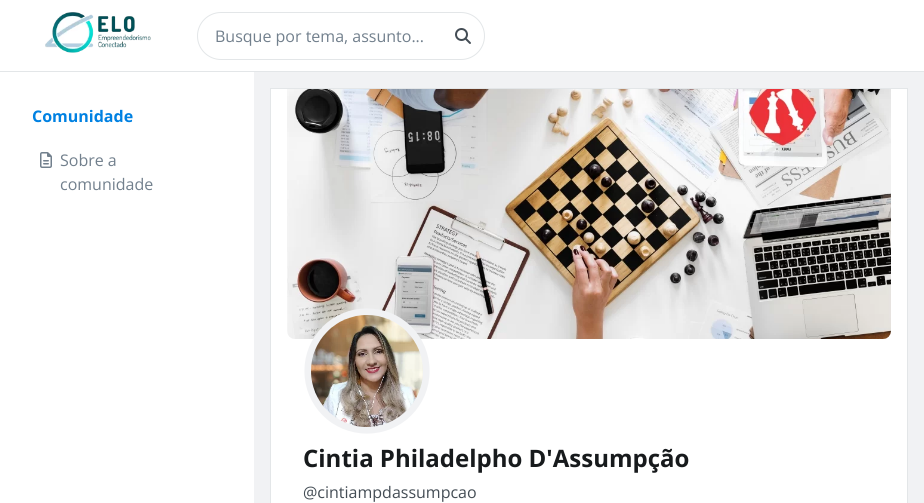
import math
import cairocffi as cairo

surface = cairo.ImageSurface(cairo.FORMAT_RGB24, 924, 503)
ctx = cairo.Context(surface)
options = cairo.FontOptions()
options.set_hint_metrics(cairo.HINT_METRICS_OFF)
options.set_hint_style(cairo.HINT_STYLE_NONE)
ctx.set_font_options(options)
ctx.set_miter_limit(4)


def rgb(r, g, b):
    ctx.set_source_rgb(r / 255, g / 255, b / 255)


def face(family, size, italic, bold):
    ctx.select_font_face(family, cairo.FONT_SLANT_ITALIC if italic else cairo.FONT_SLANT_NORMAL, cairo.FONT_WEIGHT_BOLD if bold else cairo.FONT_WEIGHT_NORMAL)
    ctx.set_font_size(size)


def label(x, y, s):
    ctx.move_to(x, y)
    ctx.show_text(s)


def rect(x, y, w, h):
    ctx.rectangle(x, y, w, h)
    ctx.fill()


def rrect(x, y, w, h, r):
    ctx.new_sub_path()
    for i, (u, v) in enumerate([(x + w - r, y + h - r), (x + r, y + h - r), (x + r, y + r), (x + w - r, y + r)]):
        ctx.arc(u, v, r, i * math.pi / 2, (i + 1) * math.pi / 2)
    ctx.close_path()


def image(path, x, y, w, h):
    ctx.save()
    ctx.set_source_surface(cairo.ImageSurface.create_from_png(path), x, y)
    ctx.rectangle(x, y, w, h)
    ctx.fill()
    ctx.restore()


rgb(241, 242, 244)
ctx.paint()
rgb(255, 255, 255)
rect(0, 0, 924, 71)
rgb(227, 230, 232)
rect(0, 71, 924, 1)
image('image0.png', 45, 12, 106, 41)
rrect(197.5, 12.5, 287, 47, 23.5)
ctx.set_line_width(1)
ctx.stroke()
face('Open Sans', 16, 0, 0)
rgb(114, 128, 141)
label(215, 42, 'Busque por tema, assunto...')
image('image1.png', 455, 28, 16, 16)
rgb(255, 255, 255)
rect(0, 72, 254, 431)
face('Open Sans', 16, 0, 1)
rgb(0, 129, 226)
label(32, 122, 'Comunidade')
image('image2.png', 40, 152, 12, 16)
face('Open Sans', 16, 0, 0)
rgb(114, 128, 141)
label(60, 166, 'Sobre a')
label(60, 190, 'comunidade')
rgb(255, 255, 255)
ctx.rectangle(270.5, 88.5, 637, 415)
ctx.fill_preserve()
rgb(227, 230, 232)
ctx.stroke()
image('image3.png', 287, 89, 604, 250)
ctx.new_path()
ctx.move_to(309.5, 371)
ctx.curve_to(309.5, 339, 335, 313.5, 367, 313.5)
ctx.curve_to(399, 313.5, 424.5, 339, 424.5, 371)
ctx.curve_to(424.5, 403, 399, 428.5, 367, 428.5)
ctx.curve_to(335, 428.5, 309.5, 403, 309.5, 371)
ctx.close_path()
rgb(241, 242, 244)
ctx.set_line_width(10.2)
ctx.stroke()
image('image4.png', 311, 315, 112, 112)
face('Open Sans', 24, 0, 1)
rgb(23, 26, 28)
label(303, 467, 'Cintia Philadelpho D\'Assumpção')
face('Open Sans', 16, 0, 0)
rgb(68, 77, 85)
label(303, 498, '@cintiampdassumpcao')
surface.write_to_png('render.png')
